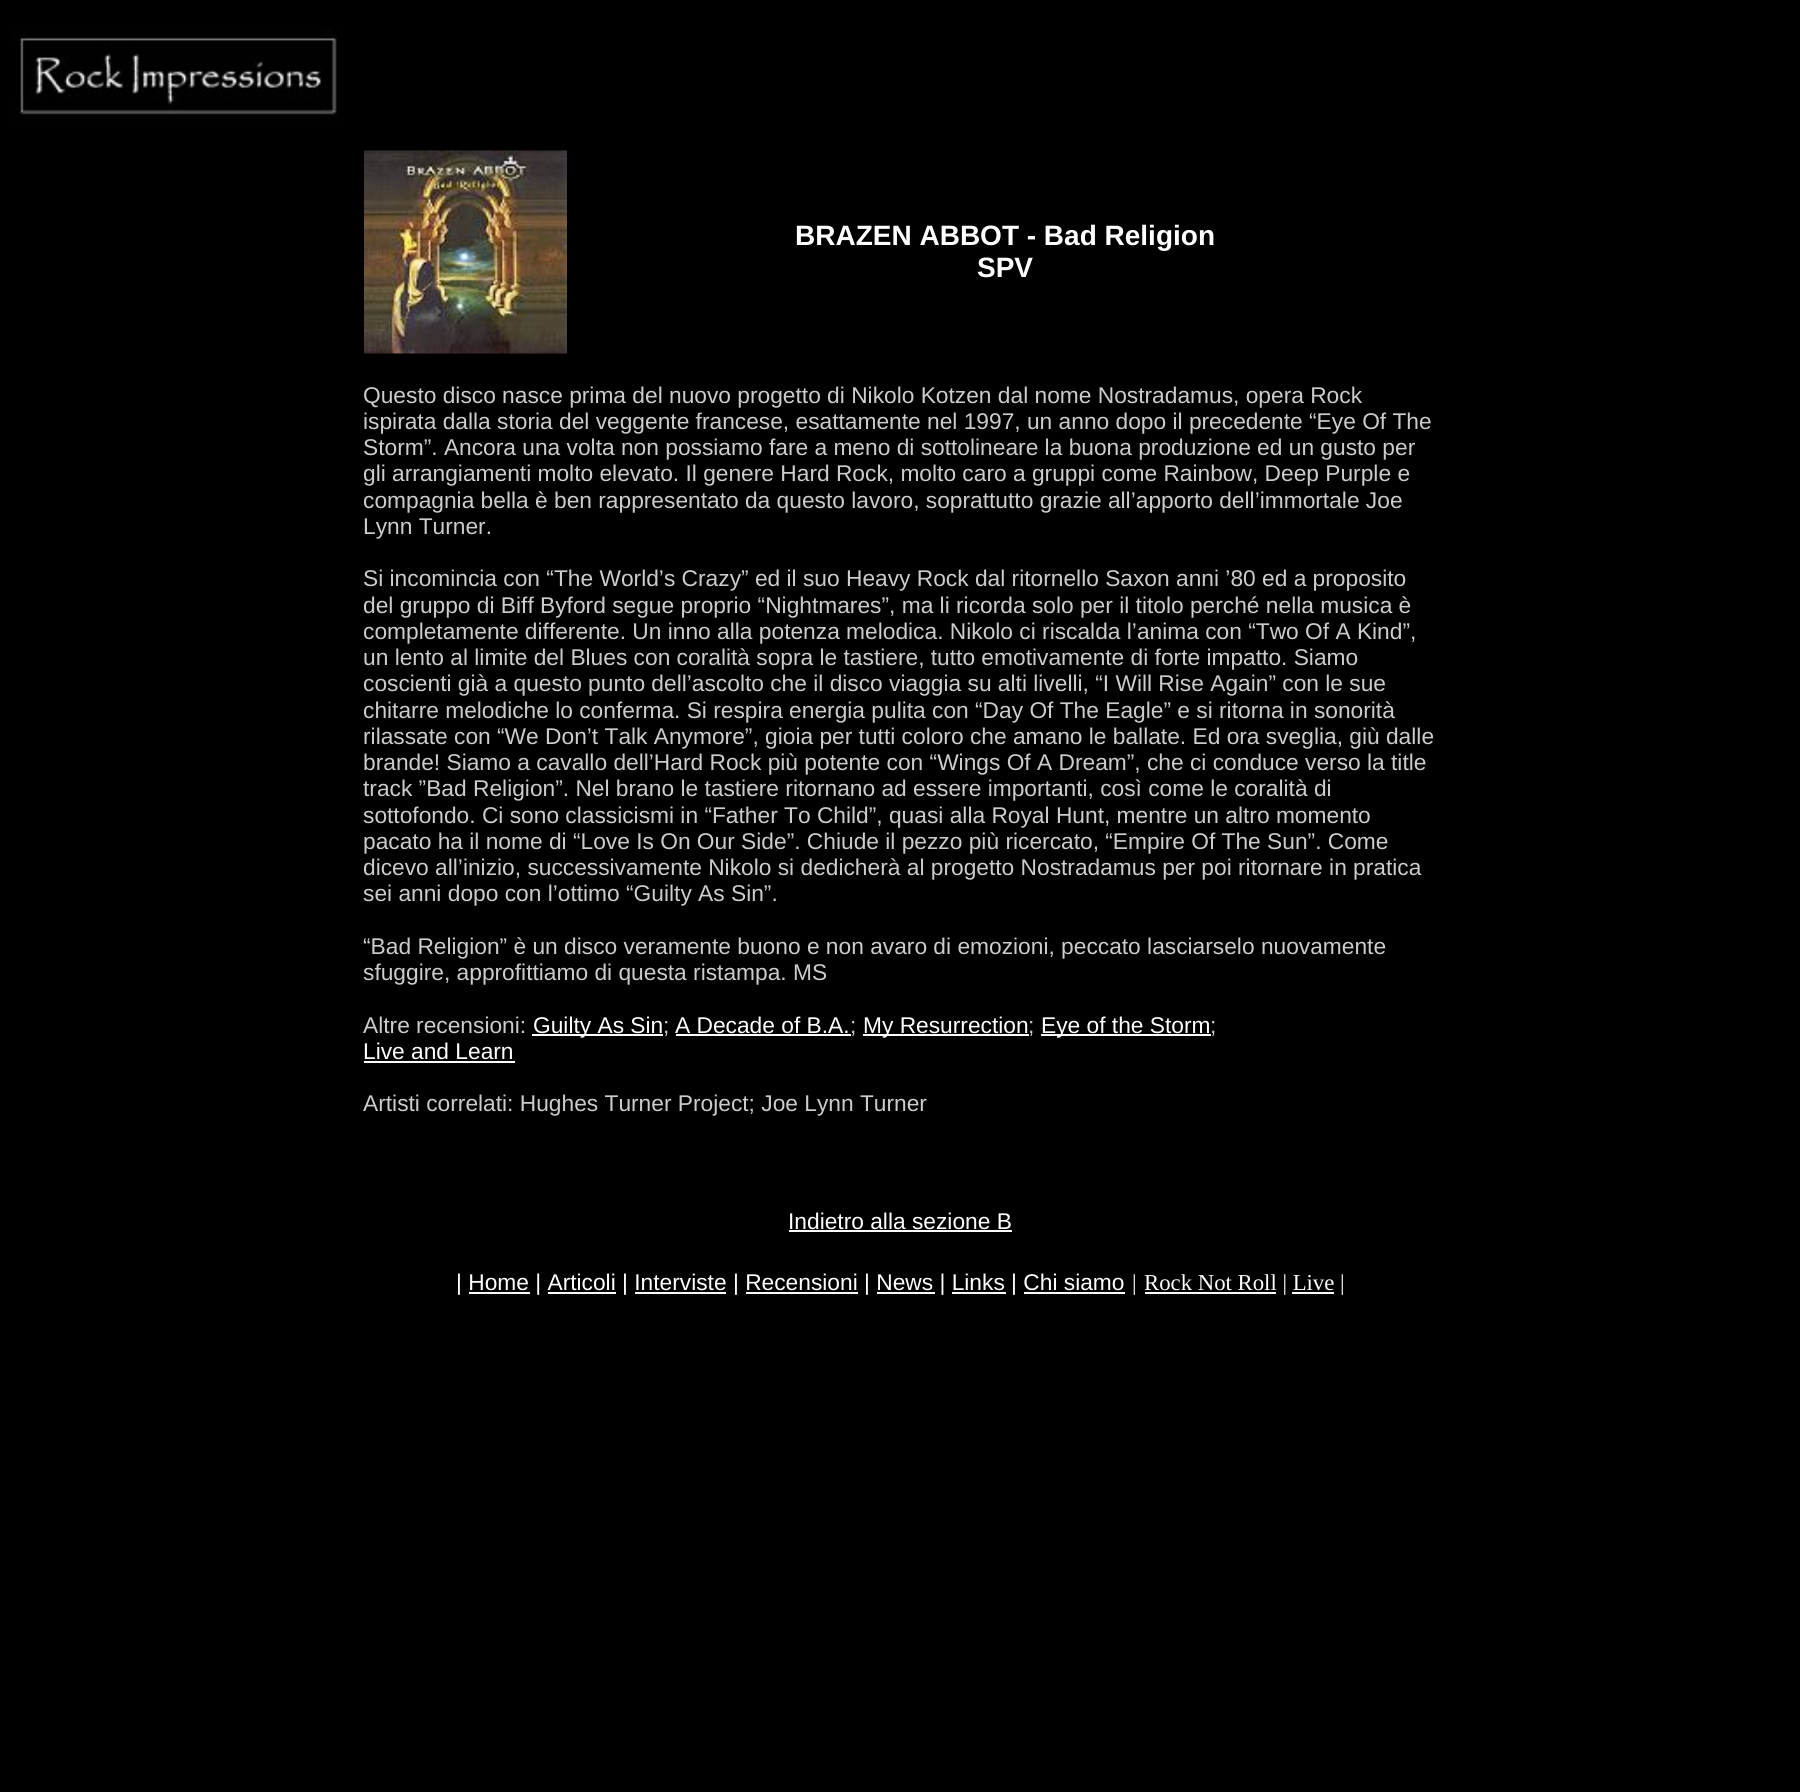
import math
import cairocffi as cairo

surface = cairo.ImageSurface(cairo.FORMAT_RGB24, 1800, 1792)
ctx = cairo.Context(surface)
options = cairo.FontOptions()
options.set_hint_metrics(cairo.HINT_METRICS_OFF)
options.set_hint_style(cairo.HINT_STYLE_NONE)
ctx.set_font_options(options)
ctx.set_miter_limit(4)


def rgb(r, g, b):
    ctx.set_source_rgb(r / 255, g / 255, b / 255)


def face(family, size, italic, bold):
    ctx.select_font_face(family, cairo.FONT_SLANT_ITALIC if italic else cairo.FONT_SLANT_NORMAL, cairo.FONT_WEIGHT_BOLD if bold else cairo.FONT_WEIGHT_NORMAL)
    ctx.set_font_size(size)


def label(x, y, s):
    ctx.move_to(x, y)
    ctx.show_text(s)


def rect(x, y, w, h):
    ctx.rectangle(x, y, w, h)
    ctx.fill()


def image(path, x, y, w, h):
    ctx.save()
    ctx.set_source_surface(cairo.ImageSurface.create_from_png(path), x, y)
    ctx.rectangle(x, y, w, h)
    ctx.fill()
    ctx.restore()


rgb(0, 0, 0)
ctx.paint()
image('image0.png', 14, 28, 323, 94)
image('image1.png', 364, 150, 203, 204)
face('Liberation Sans', 28, 0, 1)
rgb(255, 255, 255)
label(795, 245, 'BRAZEN ABBOT - Bad Religion')
label(977, 277, 'SPV')
face('Liberation Sans', 22.75, 0, 0)
rgb(204, 204, 204)
label(363, 403, 'Questo disco nasce prima del nuovo progetto di Nikolo Kotzen dal nome Nostradamus, opera Rock')
label(363, 429, 'ispirata dalla storia del veggente francese, esattamente nel 1997, un anno dopo il precedente “Eye Of The')
label(363, 455, 'Storm”. Ancora una volta non possiamo fare a meno di sottolineare la buona produzione ed un gusto per')
label(363, 481, 'gli arrangiamenti molto elevato. Il genere Hard Rock, molto caro a gruppi come Rainbow, Deep Purple e')
label(363, 508, 'compagnia bella è ben rappresentato da questo lavoro, soprattutto grazie all’apporto dell’immortale Joe')
label(363, 534, 'Lynn Turner.')
label(363, 586, 'Si incomincia con “The World’s Crazy” ed il suo Heavy Rock dal ritornello Saxon anni ’80 ed a proposito')
label(363, 613, 'del gruppo di Biff Byford segue proprio “Nightmares”, ma li ricorda solo per il titolo perché nella musica è')
label(363, 639, 'completamente differente. Un inno alla potenza melodica. Nikolo ci riscalda l’anima con “Two Of A Kind”,')
label(363, 665, 'un lento al limite del Blues con coralità sopra le tastiere, tutto emotivamente di forte impatto. Siamo')
label(363, 691, 'coscienti già a questo punto dell’ascolto che il disco viaggia su alti livelli, “I Will Rise Again” con le sue')
label(363, 718, 'chitarre melodiche lo conferma. Si respira energia pulita con “Day Of The Eagle” e si ritorna in sonorità')
label(363, 744, 'rilassate con “We Don’t Talk Anymore”, gioia per tutti coloro che amano le ballate. Ed ora sveglia, giù dalle')
label(363, 770, 'brande! Siamo a cavallo dell’Hard Rock più potente con “Wings Of A Dream”, che ci conduce verso la title')
label(363, 796, 'track ”Bad Religion”. Nel brano le tastiere ritornano ad essere importanti, così come le coralità di')
label(363, 823, 'sottofondo. Ci sono classicismi in “Father To Child”, quasi alla Royal Hunt, mentre un altro momento')
label(363, 849, 'pacato ha il nome di “Love Is On Our Side”. Chiude il pezzo più ricercato, “Empire Of The Sun”. Come')
label(363, 875, 'dicevo all’inizio, successivamente Nikolo si dedicherà al progetto Nostradamus per poi ritornare in pratica')
label(363, 901, 'sei anni dopo con l’ottimo “Guilty As Sin”.')
label(363, 954, '“Bad Religion” è un disco veramente buono e non avaro di emozioni, peccato lasciarselo nuovamente')
label(363, 980, 'sfuggire, approfittiamo di questa ristampa. MS')
label(363, 1033, 'Altre recensioni:')
rgb(255, 255, 255)
rect(532, 1034, 131, 2)
label(533, 1033, 'Guilty As Sin')
rgb(204, 204, 204)
label(663, 1033, ';')
rgb(255, 255, 255)
label(675, 1033, 'A Decade of B.A.')
rgb(204, 204, 204)
label(850, 1033, ';')
rgb(255, 255, 255)
rect(676, 1034, 175, 2)
rect(863, 1034, 166, 2)
label(863, 1033, 'My Resurrection')
rgb(204, 204, 204)
label(1028, 1033, ';')
rgb(255, 255, 255)
rect(1041, 1034, 170, 2)
label(1041, 1033, 'Eye of the Storm')
rgb(204, 204, 204)
label(1210, 1033, ';')
rgb(255, 255, 255)
label(363, 1059, 'Live and Learn')
rect(364, 1061, 151, 2)
rgb(204, 204, 204)
label(363, 1111, 'Artisti correlati: Hughes Turner Project; Joe Lynn Turner')
rgb(255, 255, 255)
label(788, 1229, 'Indietro alla sezione B')
rect(789, 1230, 223, 2)
label(456, 1290, '| Home | Articoli | Interviste | Recensioni | News | Links | Chi siamo')
rect(469, 1292, 61, 2)
rect(548, 1292, 68, 2)
rect(635, 1292, 91, 2)
rect(746, 1292, 112, 2)
rect(877, 1292, 58, 2)
rect(952, 1292, 54, 2)
rect(1024, 1292, 101, 2)
face('Liberation Serif', 22.75, 0, 0)
label(1132, 1290, '|')
rect(1145, 1292, 131, 2)
label(1144, 1290, 'Rock Not Roll | Live |')
rect(1292, 1292, 42, 2)
surface.write_to_png('render.png')
